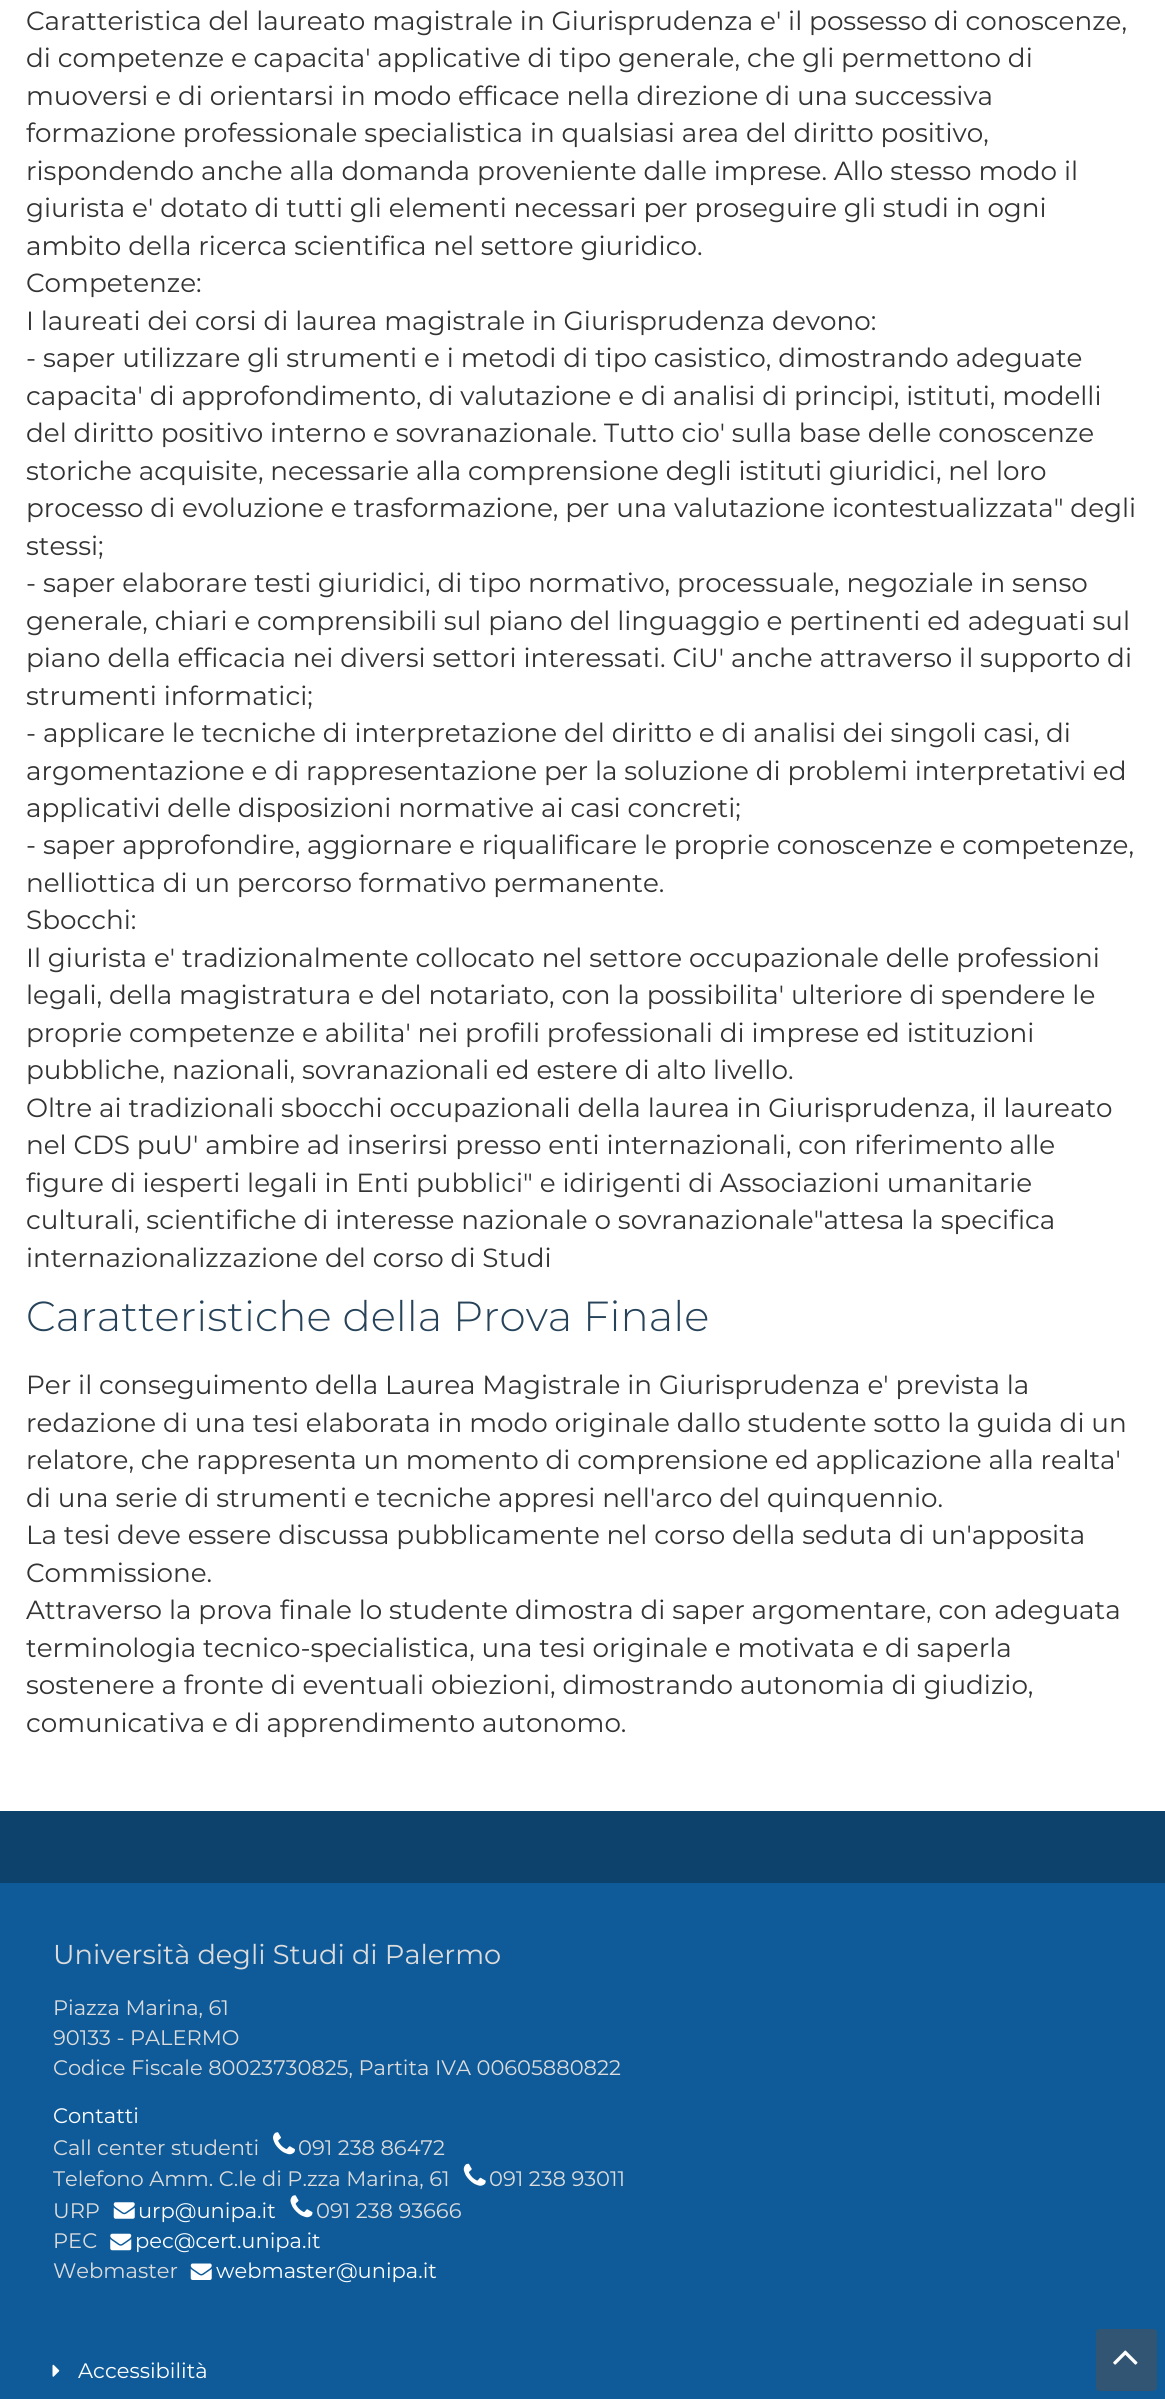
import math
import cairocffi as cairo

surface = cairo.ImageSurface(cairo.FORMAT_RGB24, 1165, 2399)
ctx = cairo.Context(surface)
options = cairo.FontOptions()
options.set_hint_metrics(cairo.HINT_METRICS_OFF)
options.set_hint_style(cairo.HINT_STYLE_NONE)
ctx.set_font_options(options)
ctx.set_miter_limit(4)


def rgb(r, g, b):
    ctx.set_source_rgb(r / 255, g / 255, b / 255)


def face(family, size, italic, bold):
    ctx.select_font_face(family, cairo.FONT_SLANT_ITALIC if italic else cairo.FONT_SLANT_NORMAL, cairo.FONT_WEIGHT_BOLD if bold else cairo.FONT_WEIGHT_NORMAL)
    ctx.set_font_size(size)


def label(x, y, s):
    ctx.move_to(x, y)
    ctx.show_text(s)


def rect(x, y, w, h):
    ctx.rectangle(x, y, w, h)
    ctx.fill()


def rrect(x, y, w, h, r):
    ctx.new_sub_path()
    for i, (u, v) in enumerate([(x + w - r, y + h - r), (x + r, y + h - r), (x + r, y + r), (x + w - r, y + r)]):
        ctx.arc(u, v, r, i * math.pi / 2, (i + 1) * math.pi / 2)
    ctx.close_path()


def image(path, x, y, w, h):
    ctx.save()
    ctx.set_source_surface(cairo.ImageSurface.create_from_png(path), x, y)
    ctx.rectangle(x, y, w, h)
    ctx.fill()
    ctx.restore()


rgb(255, 255, 255)
ctx.paint()
face('Montserrat', 26.25, 0, 0)
rgb(51, 51, 51)
label(26, 30, 'Caratteristica del laureato magistrale in Giurisprudenza e\' il possesso di conoscenze,')
label(26, 67, 'di competenze e capacita\' applicative di tipo generale, che gli permettono di')
label(26, 105, 'muoversi e di orientarsi in modo efficace nella direzione di una successiva')
label(26, 142, 'formazione professionale specialistica in qualsiasi area del diritto positivo,')
label(26, 180, 'rispondendo anche alla domanda proveniente dalle imprese. Allo stesso modo il')
label(26, 217, 'giurista e\' dotato di tutti gli elementi necessari per proseguire gli studi in ogni')
label(26, 255, 'ambito della ricerca scientifica nel settore giuridico.')
label(26, 292, 'Competenze:')
label(26, 330, 'I laureati dei corsi di laurea magistrale in Giurisprudenza devono:')
label(26, 367, '- saper utilizzare gli strumenti e i metodi di tipo casistico, dimostrando adeguate')
label(26, 405, 'capacita\' di approfondimento, di valutazione e di analisi di principi, istituti, modelli')
label(26, 442, 'del diritto positivo interno e sovranazionale. Tutto cio\' sulla base delle conoscenze')
label(26, 480, 'storiche acquisite, necessarie alla comprensione degli istituti giuridici, nel loro')
label(26, 517, 'processo di evoluzione e trasformazione, per una valutazione icontestualizzata" degli')
label(26, 555, 'stessi;')
label(26, 592, '- saper elaborare testi giuridici, di tipo normativo, processuale, negoziale in senso')
label(26, 630, 'generale, chiari e comprensibili sul piano del linguaggio e pertinenti ed adeguati sul')
label(26, 667, 'piano della efficacia nei diversi settori interessati. CiU\' anche attraverso il supporto di')
label(26, 705, 'strumenti informatici;')
label(26, 742, '- applicare le tecniche di interpretazione del diritto e di analisi dei singoli casi, di')
label(26, 780, 'argomentazione e di rappresentazione per la soluzione di problemi interpretativi ed')
label(26, 817, 'applicativi delle disposizioni normative ai casi concreti;')
label(26, 854, '- saper approfondire, aggiornare e riqualificare le proprie conoscenze e competenze,')
label(26, 892, 'nelliottica di un percorso formativo permanente.')
label(26, 929, 'Sbocchi:')
label(26, 967, 'Il giurista e\' tradizionalmente collocato nel settore occupazionale delle professioni')
label(26, 1004, 'legali, della magistratura e del notariato, con la possibilita\' ulteriore di spendere le')
label(26, 1042, 'proprie competenze e abilita\' nei profili professionali di imprese ed istituzioni')
label(26, 1079, 'pubbliche, nazionali, sovranazionali ed estere di alto livello.')
label(26, 1117, 'Oltre ai tradizionali sbocchi occupazionali della laurea in Giurisprudenza, il laureato')
label(26, 1154, 'nel CDS puU\' ambire ad inserirsi presso enti internazionali, con riferimento alle')
label(26, 1192, 'figure di iesperti legali in Enti pubblici" e idirigenti di Associazioni umanitarie')
label(26, 1229, 'culturali, scientifiche di interesse nazionale o sovranazionale"attesa la specifica')
label(26, 1267, 'internazionalizzazione del corso di Studi')
face('Montserrat Light', 42, 0, 0)
rgb(39, 67, 90)
label(26, 1331, 'Caratteristiche della Prova Finale')
face('Montserrat', 26.25, 0, 0)
rgb(51, 51, 51)
label(26, 1394, 'Per il conseguimento della Laurea Magistrale in Giurisprudenza e\' prevista la')
label(26, 1432, 'redazione di una tesi elaborata in modo originale dallo studente sotto la guida di un')
label(26, 1469, 'relatore, che rappresenta un momento di comprensione ed applicazione alla realta\'')
label(26, 1507, 'di una serie di strumenti e tecniche appresi nell\'arco del quinquennio.')
label(26, 1544, 'La tesi deve essere discussa pubblicamente nel corso della seduta di un\'apposita')
label(26, 1582, 'Commissione.')
label(26, 1619, 'Attraverso la prova finale lo studente dimostra di saper argomentare, con adeguata')
label(26, 1657, 'terminologia tecnico-specialistica, una tesi originale e motivata e di saperla')
label(26, 1694, 'sostenere a fronte di eventuali obiezioni, dimostrando autonomia di giudizio,')
label(26, 1732, 'comunicativa e di apprendimento autonomo.')
rgb(15, 91, 153)
rect(0, 1883, 1165, 516)
rgb(12, 66, 107)
rect(0, 1811, 1165, 72)
face('Montserrat', 27.25, 0, 0)
rgb(220, 220, 220)
label(53, 1964, 'Università degli Studi di Palermo')
face('Montserrat', 21, 0, 0)
label(53, 2015, 'Piazza Marina, 61')
label(53, 2045, '90133 - PALERMO')
label(53, 2075, 'Codice Fiscale 80023730825, Partita IVA 00605880822')
rgb(255, 255, 255)
label(53, 2123, 'Contatti')
rgb(220, 220, 220)
label(53, 2155, 'Call center studenti')
image('image0.png', 273, 2132, 22, 23)
label(298, 2155, '091 238 86472')
label(53, 2186, 'Telefono Amm. C.le di P.zza Marina, 61')
image('image1.png', 463, 2163, 23, 23)
label(489, 2186, '091 238 93011')
label(53, 2218, 'URP')
image('image2.png', 113, 2202, 22, 17)
rgb(255, 255, 255)
label(138, 2218, 'urp@unipa.it')
image('image3.png', 290, 2195, 23, 23)
rgb(220, 220, 220)
label(316, 2218, '091 238 93666')
label(53, 2248, 'PEC')
image('image4.png', 110, 2233, 22, 18)
rgb(255, 255, 255)
label(135, 2248, 'pec@cert.unipa.it')
rgb(220, 220, 220)
label(53, 2278, 'Webmaster')
image('image5.png', 190, 2263, 22, 17)
rgb(255, 255, 255)
label(216, 2278, 'webmaster@unipa.it')
image('image6.png', 52, 2364, 8, 13)
label(78, 2378, 'Accessibilità')
rgb(49, 85, 114)
rrect(1096, 2329, 61, 62, 4)
ctx.fill()
image('image7.png', 1113, 2350, 25, 15)
surface.write_to_png('render.png')
